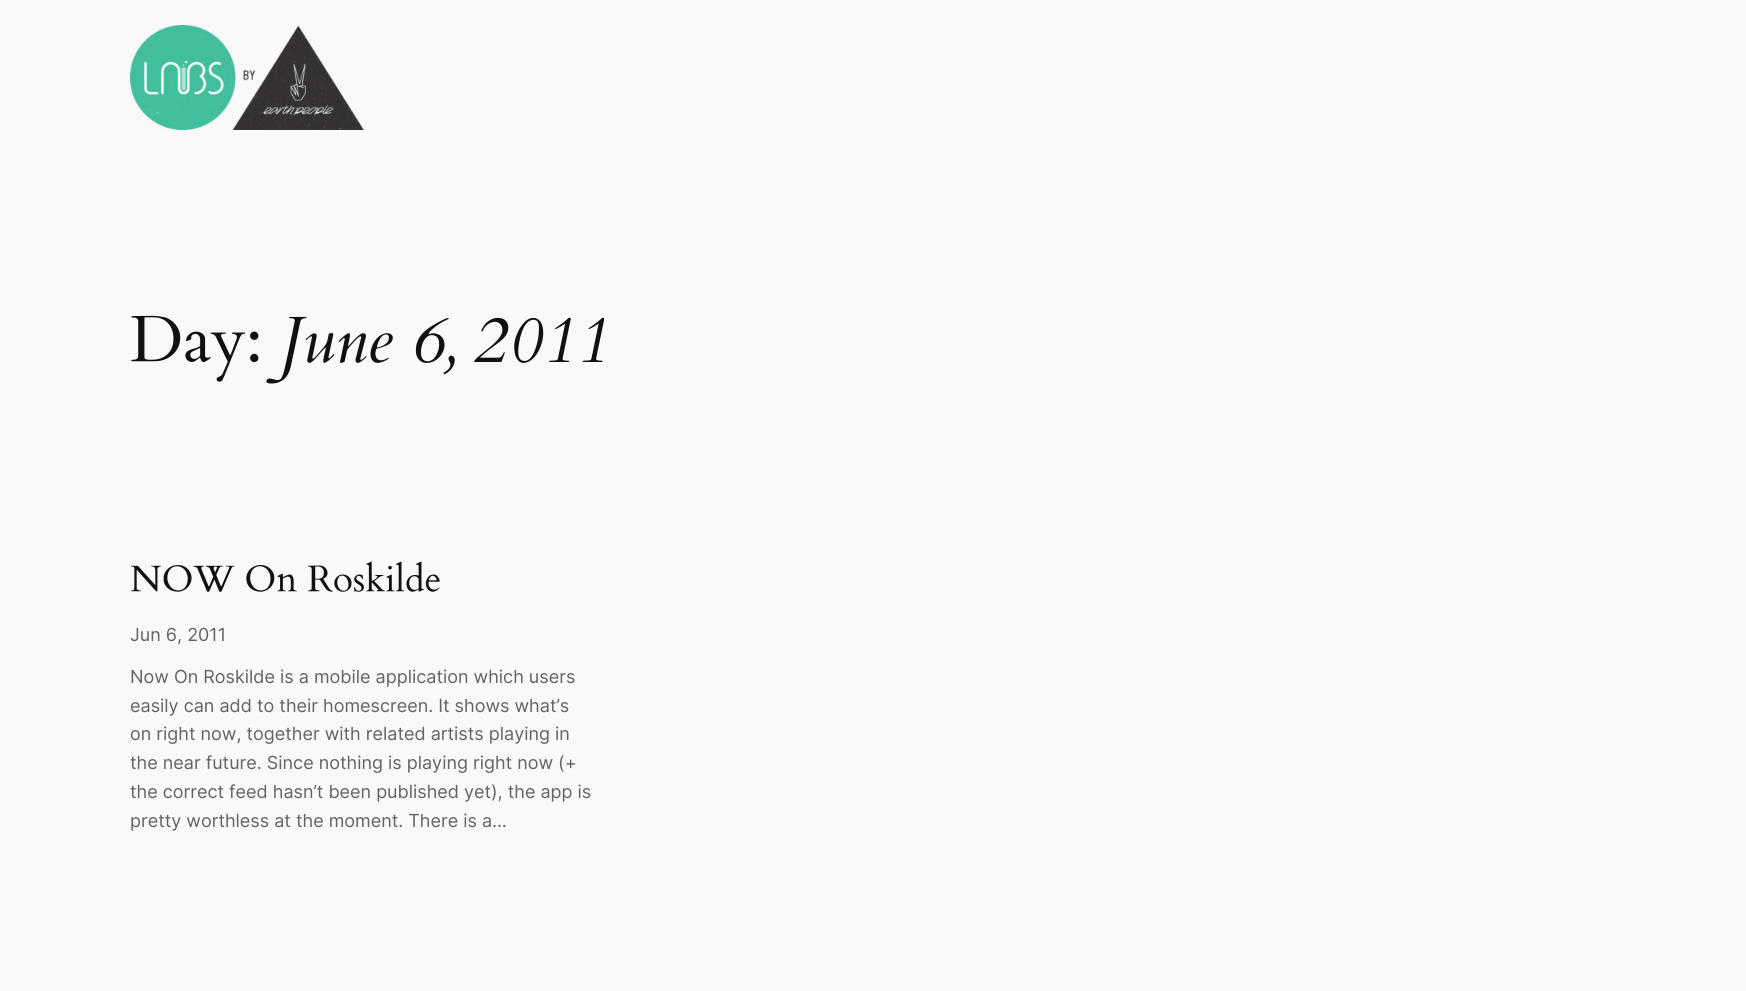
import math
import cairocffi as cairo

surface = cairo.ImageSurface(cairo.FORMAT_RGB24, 1746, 991)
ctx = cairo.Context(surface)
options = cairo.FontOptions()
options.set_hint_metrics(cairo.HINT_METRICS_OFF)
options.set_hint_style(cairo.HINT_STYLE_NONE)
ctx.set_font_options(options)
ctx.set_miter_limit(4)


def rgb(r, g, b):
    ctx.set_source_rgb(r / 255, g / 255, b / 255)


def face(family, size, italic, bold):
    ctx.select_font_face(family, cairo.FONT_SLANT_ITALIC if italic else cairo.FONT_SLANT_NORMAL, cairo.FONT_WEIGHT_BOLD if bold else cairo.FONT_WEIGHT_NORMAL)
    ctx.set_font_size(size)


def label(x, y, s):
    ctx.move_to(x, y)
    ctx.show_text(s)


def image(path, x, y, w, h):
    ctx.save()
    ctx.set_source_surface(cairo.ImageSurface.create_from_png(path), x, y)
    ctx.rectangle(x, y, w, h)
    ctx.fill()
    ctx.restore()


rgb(249, 249, 249)
ctx.paint()
image('image0.png', 130, 25, 234, 105)
image('image1.png', 131, 315, 128, 67)
face('Cardo', 65.5, 1, 0)
rgb(17, 17, 17)
label(280, 362, 'June 6, 2011')
image('image2.png', 131, 561, 309, 31)
face('Inter', 18, 0, 0)
rgb(99, 99, 99)
label(130, 641, 'Jun 6, 2011')
label(130, 683, 'Now On Roskilde is a mobile application which users')
label(130, 712, 'easily can add to their homescreen. It shows what’s')
label(130, 740, 'on right now, together with related artists playing in')
label(130, 769, 'the near future. Since nothing is playing right now (+')
label(130, 798, 'the correct feed hasn’t been published yet), the app is')
label(130, 827, 'pretty worthless at the moment. There is a…')
surface.write_to_png('render.png')
